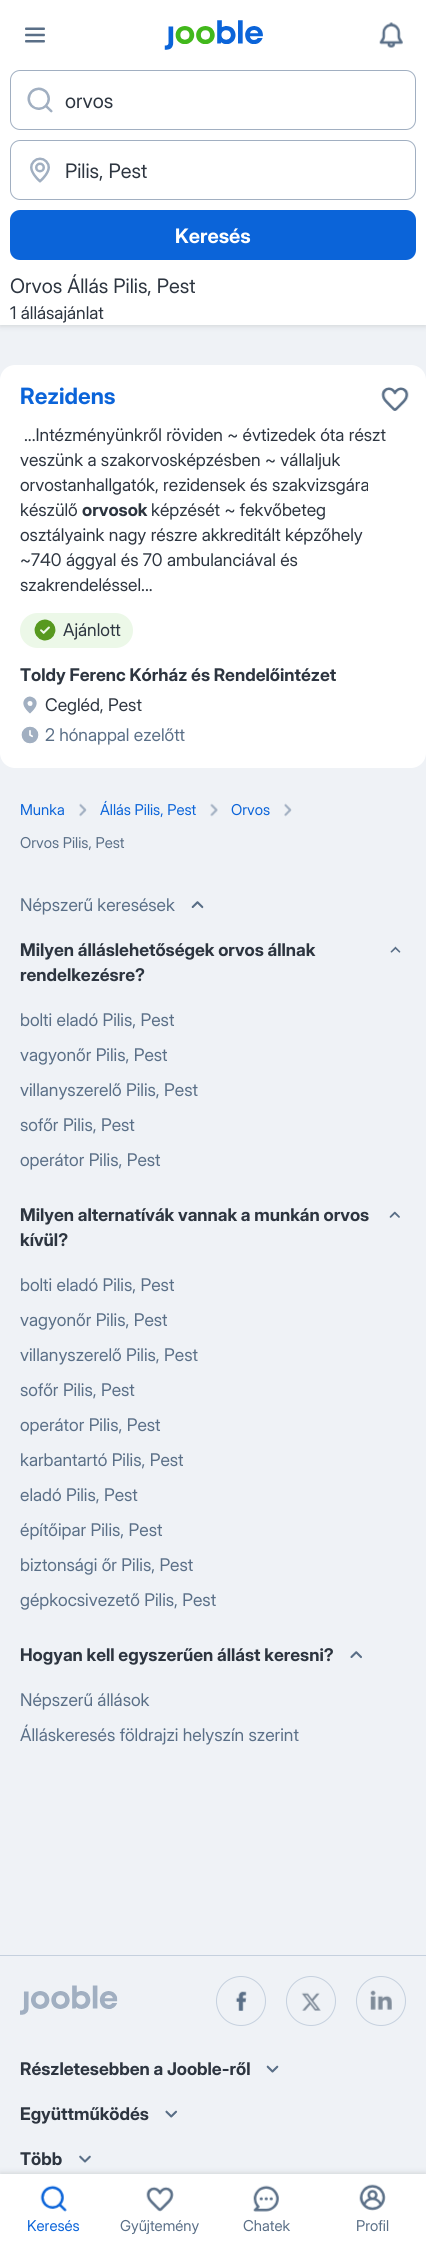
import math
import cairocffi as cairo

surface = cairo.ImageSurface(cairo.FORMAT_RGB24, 426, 2243)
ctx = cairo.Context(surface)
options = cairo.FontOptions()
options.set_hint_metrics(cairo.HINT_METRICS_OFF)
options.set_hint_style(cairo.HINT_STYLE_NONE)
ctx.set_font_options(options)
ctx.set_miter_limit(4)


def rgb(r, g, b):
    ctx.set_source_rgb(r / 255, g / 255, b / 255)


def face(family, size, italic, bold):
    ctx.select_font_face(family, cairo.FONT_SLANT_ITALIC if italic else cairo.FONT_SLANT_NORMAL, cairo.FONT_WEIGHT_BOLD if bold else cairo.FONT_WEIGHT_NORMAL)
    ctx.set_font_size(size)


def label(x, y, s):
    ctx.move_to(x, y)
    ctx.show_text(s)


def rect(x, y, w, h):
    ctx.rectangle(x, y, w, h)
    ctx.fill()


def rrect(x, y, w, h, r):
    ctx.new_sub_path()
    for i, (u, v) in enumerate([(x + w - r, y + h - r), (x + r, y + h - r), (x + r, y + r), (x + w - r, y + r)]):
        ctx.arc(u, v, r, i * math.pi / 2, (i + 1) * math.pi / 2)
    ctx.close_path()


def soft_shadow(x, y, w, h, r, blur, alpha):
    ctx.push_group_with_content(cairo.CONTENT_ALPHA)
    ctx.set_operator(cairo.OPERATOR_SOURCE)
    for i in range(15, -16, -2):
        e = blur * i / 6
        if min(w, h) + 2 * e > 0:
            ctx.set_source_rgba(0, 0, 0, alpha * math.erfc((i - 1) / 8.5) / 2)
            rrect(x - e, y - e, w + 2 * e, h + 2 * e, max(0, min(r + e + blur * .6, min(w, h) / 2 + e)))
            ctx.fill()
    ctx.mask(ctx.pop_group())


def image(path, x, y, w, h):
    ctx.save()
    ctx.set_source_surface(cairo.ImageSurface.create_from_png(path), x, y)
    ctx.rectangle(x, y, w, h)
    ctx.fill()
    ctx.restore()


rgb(239, 242, 246)
ctx.paint()
rgb(23, 30, 38)
soft_shadow(0, 0, 426, 325, 0, 4, 0.12)
soft_shadow(0, 0, 426, 325, 0, 2.5, 0.08)
rgb(255, 255, 255)
rect(0, 0, 426, 325)
image('image0.png', 25, 27, 20, 16)
image('image1.png', 164, 20, 99, 30)
image('image2.png', 379, 22, 24, 26)
rrect(10.5, 70.5, 405, 59, 9.5)
rgb(161, 175, 193)
ctx.set_line_width(1)
ctx.stroke()
image('image3.png', 27, 87, 26, 26)
face('Inter Display', 20, 0, 0)
rgb(45, 53, 64)
label(65, 108, 'orvos')
rrect(10.5, 140.5, 405, 59, 9.5)
rgb(161, 175, 193)
ctx.stroke()
image('image4.png', 30, 157, 20, 26)
rgb(45, 53, 64)
label(65, 178, 'Pilis, Pest')
rgb(11, 100, 217)
rrect(10, 210, 406, 50, 10)
ctx.fill()
face('Inter Display', 20, 0, 1)
rgb(255, 255, 255)
label(175, 243, 'Keresés')
face('Inter Display', 20, 0, 0)
rgb(45, 53, 64)
label(10, 293, 'Orvos Állás Pilis, Pest')
face('Inter Display', 17.5, 0, 0)
label(10, 319, '1 állásajánlat')
rgb(255, 255, 255)
rrect(0, 365, 426, 403, 15)
ctx.fill()
face('Inter Display', 22.5, 0, 1)
rgb(11, 100, 217)
label(20, 404, 'Rezidens')
image('image5.png', 381, 387, 28, 24)
face('Inter Display', 17.5, 0, 0)
rgb(45, 53, 64)
label(24, 441, '...Intézményünkről röviden ~ évtizedek óta részt')
label(20, 466, 'veszünk a szakorvosképzésben ~ vállaljuk')
label(20, 491, 'orvostanhallgatók, rezidensek és szakvizsgára')
label(20, 516, 'készülő')
face('Inter Display', 17.5, 0, 1)
label(82, 516, 'orvosok')
face('Inter Display', 17.5, 0, 0)
label(151, 516, 'képzését ~ fekvőbeteg')
label(20, 541, 'osztályaink nagy részre akkreditált képzőhely')
label(20, 566, '~740 ággyal és 70 ambulanciával és')
label(20, 591, 'szakrendeléssel...')
rgb(236, 248, 232)
rrect(20, 613, 113, 35, 17.5)
ctx.fill()
image('image6.png', 34, 619, 22, 22)
rgb(45, 53, 64)
label(63, 636, 'Ajánlott')
face('Inter Display', 17.5, 0, 1)
label(20, 681, 'Toldy Ferenc Kórház és Rendelőintézet')
image('image7.png', 23, 696, 14, 18)
face('Inter Display', 17.5, 0, 0)
label(45, 711, 'Cegléd, Pest')
image('image8.png', 21, 726, 18, 18)
rgb(90, 111, 135)
label(45, 741, '2 hónappal ezelőtt')
face('Inter Display', 15, 0, 0)
rgb(11, 100, 217)
label(20, 815, 'Munka')
image('image9.png', 79, 803, 8, 14)
label(100, 815, 'Állás Pilis, Pest')
image('image10.png', 210, 803, 8, 14)
label(231, 815, 'Orvos')
image('image9.png', 284, 803, 8, 14)
rgb(90, 111, 135)
label(20, 848, 'Orvos Pilis, Pest')
face('Inter Display', 17.5, 0, 0)
label(20, 911, 'Népszerű keresések')
image('image11.png', 191, 901, 13, 8)
face('Inter Display', 17.5, 0, 1)
rgb(45, 53, 64)
label(20, 956, 'Milyen álláslehetőségek orvos állnak')
image('image12.png', 390, 946, 11, 7)
label(20, 981, 'rendelkezésre?')
face('Inter Display', 17.5, 0, 0)
rgb(90, 111, 135)
label(20, 1026, 'bolti eladó Pilis, Pest')
label(20, 1061, 'vagyonőr Pilis, Pest')
label(20, 1096, 'villanyszerelő Pilis, Pest')
label(20, 1131, 'sofőr Pilis, Pest')
label(20, 1166, 'operátor Pilis, Pest')
face('Inter Display', 17.5, 0, 1)
rgb(45, 53, 64)
label(20, 1221, 'Milyen alternatívák vannak a munkán orvos')
image('image13.png', 389, 1211, 11, 7)
label(20, 1246, 'kívül?')
face('Inter Display', 17.5, 0, 0)
rgb(90, 111, 135)
label(20, 1291, 'bolti eladó Pilis, Pest')
label(20, 1326, 'vagyonőr Pilis, Pest')
label(20, 1361, 'villanyszerelő Pilis, Pest')
label(20, 1396, 'sofőr Pilis, Pest')
label(20, 1431, 'operátor Pilis, Pest')
label(20, 1466, 'karbantartó Pilis, Pest')
label(20, 1501, 'eladó Pilis, Pest')
label(20, 1536, 'építőipar Pilis, Pest')
label(20, 1571, 'biztonsági őr Pilis, Pest')
label(20, 1606, 'gépkocsivezető Pilis, Pest')
face('Inter Display', 17.5, 0, 1)
rgb(45, 53, 64)
label(20, 1661, 'Hogyan kell egyszerűen állást keresni?')
image('image14.png', 350, 1651, 12, 8)
face('Inter Display', 17.5, 0, 0)
rgb(90, 111, 135)
label(20, 1706, 'Népszerű állások')
label(20, 1741, 'Álláskeresés földrajzi helyszín szerint')
rgb(197, 208, 222)
rect(0, 1955, 426, 1)
image('image15.png', 20, 1985, 98, 30)
ctx.arc(241, 2001, 24.5, 0, 2 * math.pi)
ctx.stroke()
image('image16.png', 235, 1991, 12, 20)
ctx.arc(311, 2001, 24.5, 0, 2 * math.pi)
ctx.stroke()
image('image17.png', 301, 1992, 20, 19)
ctx.arc(381, 2001, 24.5, 0, 2 * math.pi)
ctx.stroke()
image('image18.png', 370, 1990, 22, 20)
face('Inter Display', 17.5, 0, 1)
rgb(45, 53, 64)
label(20, 2075, 'Részletesebben a Jooble-ről')
image('image19.png', 266, 2065, 13, 8)
label(20, 2120, 'Együttműködés')
image('image20.png', 165, 2110, 13, 8)
label(20, 2165, 'Több')
image('image21.png', 79, 2155, 12, 8)
rgb(23, 30, 38)
soft_shadow(0, 2174, 426, 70, 0, 4, 0.12)
soft_shadow(0, 2174, 426, 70, 0, 2.5, 0.08)
rgb(255, 255, 255)
rect(0, 2174, 426, 69)
image('image22.png', 40, 2185, 27, 27)
face('Inter Display', 15, 0, 0)
rgb(11, 100, 217)
label(27, 2231, 'Keresés')
image('image23.png', 146, 2186, 28, 26)
rgb(90, 111, 135)
label(120, 2231, 'Gyűjtemény')
image('image24.png', 253, 2185, 26, 27)
label(243, 2231, 'Chatek')
image('image25.png', 359, 2184, 27, 27)
label(356, 2231, 'Profil')
surface.write_to_png('render.png')
